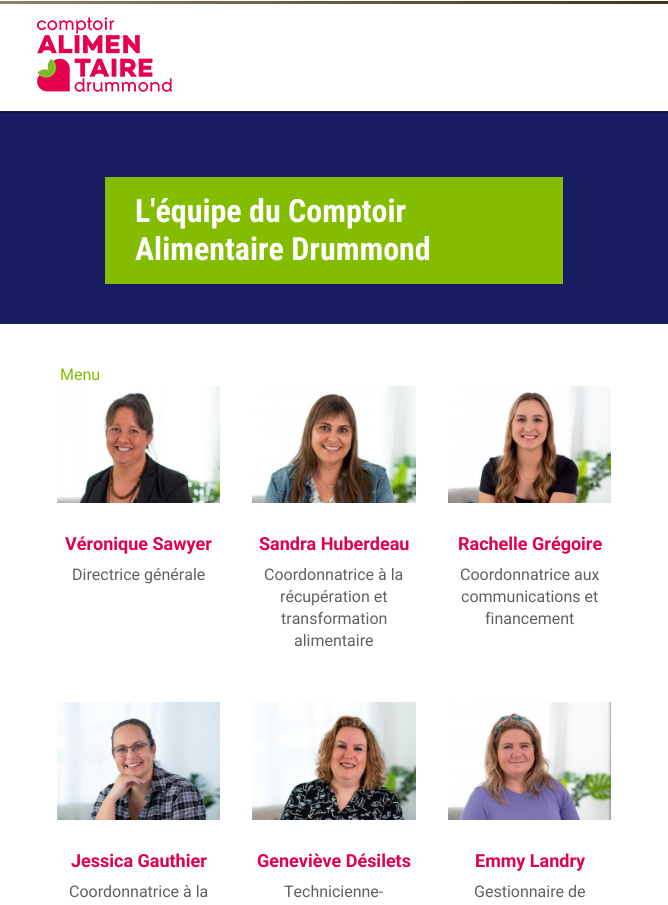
import math
import cairocffi as cairo

surface = cairo.ImageSurface(cairo.FORMAT_RGB24, 668, 905)
ctx = cairo.Context(surface)
options = cairo.FontOptions()
options.set_hint_metrics(cairo.HINT_METRICS_OFF)
options.set_hint_style(cairo.HINT_STYLE_NONE)
ctx.set_font_options(options)
ctx.set_miter_limit(4)


def rgb(r, g, b):
    ctx.set_source_rgb(r / 255, g / 255, b / 255)


def face(family, size, italic, bold):
    ctx.select_font_face(family, cairo.FONT_SLANT_ITALIC if italic else cairo.FONT_SLANT_NORMAL, cairo.FONT_WEIGHT_BOLD if bold else cairo.FONT_WEIGHT_NORMAL)
    ctx.set_font_size(size)


def label(x, y, s):
    ctx.move_to(x, y)
    ctx.show_text(s)


def rect(x, y, w, h):
    ctx.rectangle(x, y, w, h)
    ctx.fill()


def image(path, x, y, w, h):
    ctx.save()
    ctx.set_source_surface(cairo.ImageSurface.create_from_png(path), x, y)
    ctx.rectangle(x, y, w, h)
    ctx.fill()
    ctx.restore()


rgb(255, 255, 255)
ctx.paint()
rgb(17, 20, 68)
rect(0, 112, 668, 1)
rgb(33, 21, 81)
rect(0, 111, 668, 1)
gradient = cairo.LinearGradient(0, 2.5, 668, 2.5)
gradient.add_color_stop_rgba(0, 0.545, 0.51, 0.412, 1)
gradient.add_color_stop_rgba(1, 0.235, 0.212, 0.122, 1)
ctx.set_source(gradient)
rect(0, 1, 668, 3)
image('image0.png', 37, 17, 135, 75)
rgb(24, 29, 97)
rect(0, 113, 668, 211)
rgb(132, 189, 0)
rect(105, 177, 458, 107)
face('Roboto Condensed', 32, 0, 1)
rgb(255, 255, 255)
label(135, 222, 'L\'équipe du Comptoir')
label(135, 260, 'Alimentaire Drummond')
face('Roboto', 16, 0, 0)
rgb(132, 189, 0)
label(60, 380, 'Menu')
image('image1.png', 57, 386, 163, 117)
face('Roboto', 18, 0, 1)
rgb(224, 0, 77)
label(65, 550, 'Véronique Sawyer')
face('Roboto', 16, 0, 0)
rgb(96, 96, 96)
label(72, 580, 'Directrice générale')
image('image2.png', 252, 386, 164, 117)
face('Roboto', 18, 0, 1)
rgb(224, 0, 77)
label(259, 550, 'Sandra Huberdeau')
face('Roboto', 16, 0, 0)
rgb(96, 96, 96)
label(264, 580, 'Coordonnatrice à la')
label(280, 602, 'récupération et')
label(281, 624, 'transformation')
label(294, 646, 'alimentaire')
image('image3.png', 448, 386, 163, 117)
face('Roboto', 18, 0, 1)
rgb(224, 0, 77)
label(458, 550, 'Rachelle Grégoire')
face('Roboto', 16, 0, 0)
rgb(96, 96, 96)
label(460, 580, 'Coordonnatrice aux')
label(461, 602, 'communications et')
label(485, 624, 'financement')
image('image4.png', 57, 702, 163, 118)
face('Roboto', 18, 0, 1)
rgb(224, 0, 77)
label(71, 867, 'Jessica Gauthier')
face('Roboto', 16, 0, 0)
rgb(96, 96, 96)
label(69, 897, 'Coordonnatrice à la')
image('image5.png', 252, 702, 164, 118)
face('Roboto', 18, 0, 1)
rgb(224, 0, 77)
label(257, 867, 'Geneviève Désilets')
face('Roboto', 16, 0, 0)
rgb(96, 96, 96)
label(284, 897, 'Technicienne-')
image('image6.png', 448, 702, 163, 118)
face('Roboto', 18, 0, 1)
rgb(224, 0, 77)
label(475, 867, 'Emmy Landry')
face('Roboto', 16, 0, 0)
rgb(96, 96, 96)
label(474, 897, 'Gestionnaire de')
surface.write_to_png('render.png')
